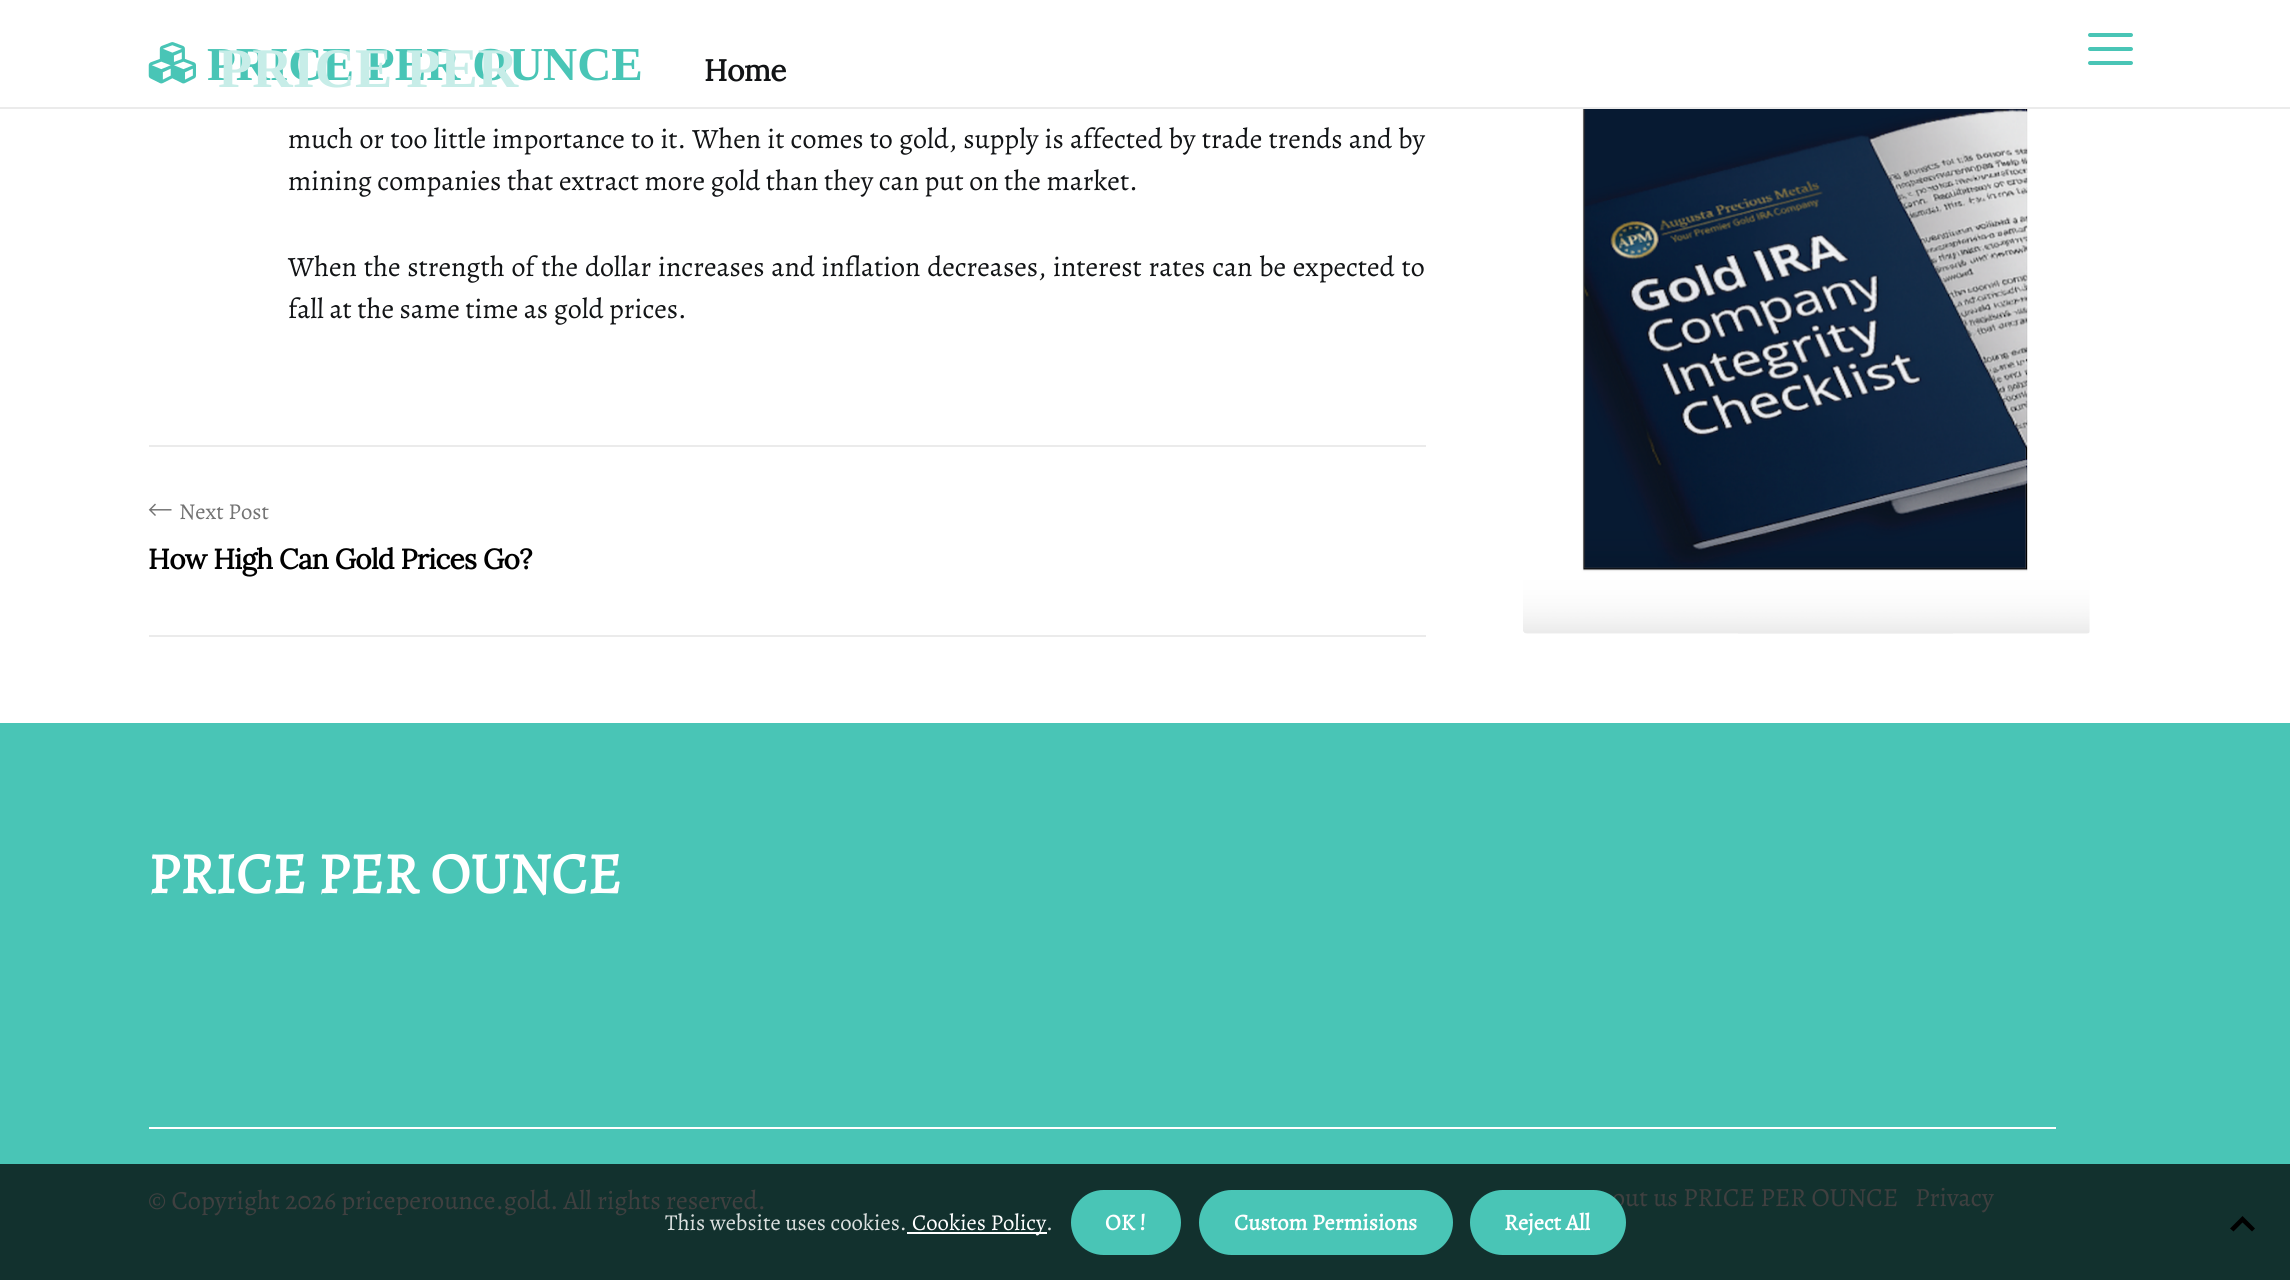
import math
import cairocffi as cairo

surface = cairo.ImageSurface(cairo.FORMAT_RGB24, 2290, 1280)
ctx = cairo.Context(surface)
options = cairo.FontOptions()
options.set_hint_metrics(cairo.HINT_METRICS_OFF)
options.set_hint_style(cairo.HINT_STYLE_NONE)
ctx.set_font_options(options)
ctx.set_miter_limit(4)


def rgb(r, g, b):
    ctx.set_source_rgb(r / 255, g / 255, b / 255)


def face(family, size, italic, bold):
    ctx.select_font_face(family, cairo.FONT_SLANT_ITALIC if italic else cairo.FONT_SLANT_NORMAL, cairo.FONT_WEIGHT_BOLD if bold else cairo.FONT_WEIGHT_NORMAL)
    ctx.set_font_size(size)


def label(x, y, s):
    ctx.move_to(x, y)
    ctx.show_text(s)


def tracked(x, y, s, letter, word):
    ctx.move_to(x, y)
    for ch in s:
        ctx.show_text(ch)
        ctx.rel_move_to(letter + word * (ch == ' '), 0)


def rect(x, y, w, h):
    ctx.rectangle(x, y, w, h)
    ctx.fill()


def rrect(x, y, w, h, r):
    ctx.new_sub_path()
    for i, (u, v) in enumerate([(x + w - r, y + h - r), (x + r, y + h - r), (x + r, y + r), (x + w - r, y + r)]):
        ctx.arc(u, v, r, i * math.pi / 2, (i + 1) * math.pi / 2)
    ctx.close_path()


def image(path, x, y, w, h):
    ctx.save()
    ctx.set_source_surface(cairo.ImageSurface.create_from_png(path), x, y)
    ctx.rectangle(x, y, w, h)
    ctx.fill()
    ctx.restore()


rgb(255, 255, 255)
ctx.paint()
rgb(235, 235, 235)
rect(0, 107, 2290, 2)
image('image0.png', 148, 42, 48, 42)
face('Liberation Serif', 47.25, 0, 1)
rgb(73, 197, 182)
label(207, 80, 'PRICE PER OUNCE')
face('Liberation Serif', 56, 0, 1)
rgb(199, 237, 232)
label(218, 87, 'PRICE PER')
face('Lora', 30, 0, 1)
rgb(18, 20, 22)
tracked(704, 81, 'Home', -0.5, 0)
rgb(73, 197, 182)
rrect(2088, 33, 45, 4, 2)
ctx.fill()
rrect(2088, 47, 45, 4, 2)
ctx.fill()
rrect(2088, 61, 45, 4, 2)
ctx.fill()
face('Alegreya', 28, 0, 0)
rgb(18, 20, 22)
tracked(288, 148, 'much or too little importance to it. When it comes to gold, supply is affected by trade trends and by', 0, 0.6)
label(288, 190, 'mining companies that extract more gold than they can put on the market.')
tracked(288, 276, 'When the strength of the dollar increases and inflation decreases, interest rates can be expected to', 0, 1.25)
label(288, 318, 'fall at the same time as gold prices.')
rgb(235, 235, 235)
rect(149, 445, 1277, 2)
rect(149, 635, 1277, 2)
image('image1.png', 148, 503, 24, 13)
face('Alegreya', 22.75, 0, 0)
rgb(115, 115, 115)
label(179, 519, 'Next Post')
face('Lora', 28, 0, 1)
rgb(0, 0, 0)
tracked(148, 569, 'How High Can Gold Prices Go?', -0.7, 0)
image('image2.png', 1523, 109, 567, 525)
rgb(73, 197, 182)
rect(0, 723, 2290, 441)
rgb(18, 49, 46)
rect(0, 1164, 2290, 116)
face('Alegreya', 57.75, 0, 1)
rgb(255, 255, 255)
label(148, 893, 'PRICE PER OUNCE')
rect(149, 1127, 1907, 2)
face('Alegreya', 26.25, 0, 0)
rgb(64, 64, 64)
label(148, 1209, '© Copyright 2026 priceperounce.gold. All rights reserved.')
label(1612, 1206, 'out us PRICE PER OUNCE')
label(1915, 1206, 'Privacy')
rgb(0, 0, 0)
ctx.new_path()
ctx.move_to(2230, 1228.5)
ctx.line_to(2242.5, 1216)
ctx.line_to(2242.5, 1222.5)
ctx.line_to(2233.5, 1231.5)
ctx.close_path()
ctx.move_to(2255, 1228.5)
ctx.line_to(2252, 1231.5)
ctx.line_to(2242.5, 1222.5)
ctx.line_to(2242.5, 1216)
ctx.close_path()
ctx.fill()
face('Alegreya', 22.75, 0, 0)
rgb(219, 224, 223)
label(665, 1230, 'This website uses cookies.')
rgb(255, 255, 255)
rect(907, 1232, 140, 2)
label(912, 1230, 'Cookies Policy')
rgb(219, 224, 223)
label(1046, 1230, '.')
rgb(73, 197, 182)
rrect(1071, 1190, 110, 65, 32.5)
ctx.fill()
face('Alegreya', 22.75, 0, 1)
rgb(255, 255, 255)
label(1105, 1230, 'OK !')
rgb(73, 197, 182)
rrect(1199, 1190, 254, 65, 32.5)
ctx.fill()
rgb(255, 255, 255)
label(1234, 1230, 'Custom Permisions')
rgb(73, 197, 182)
rrect(1470, 1190, 156, 65, 32.5)
ctx.fill()
rgb(255, 255, 255)
label(1504, 1230, 'Reject All')
surface.write_to_png('render.png')
